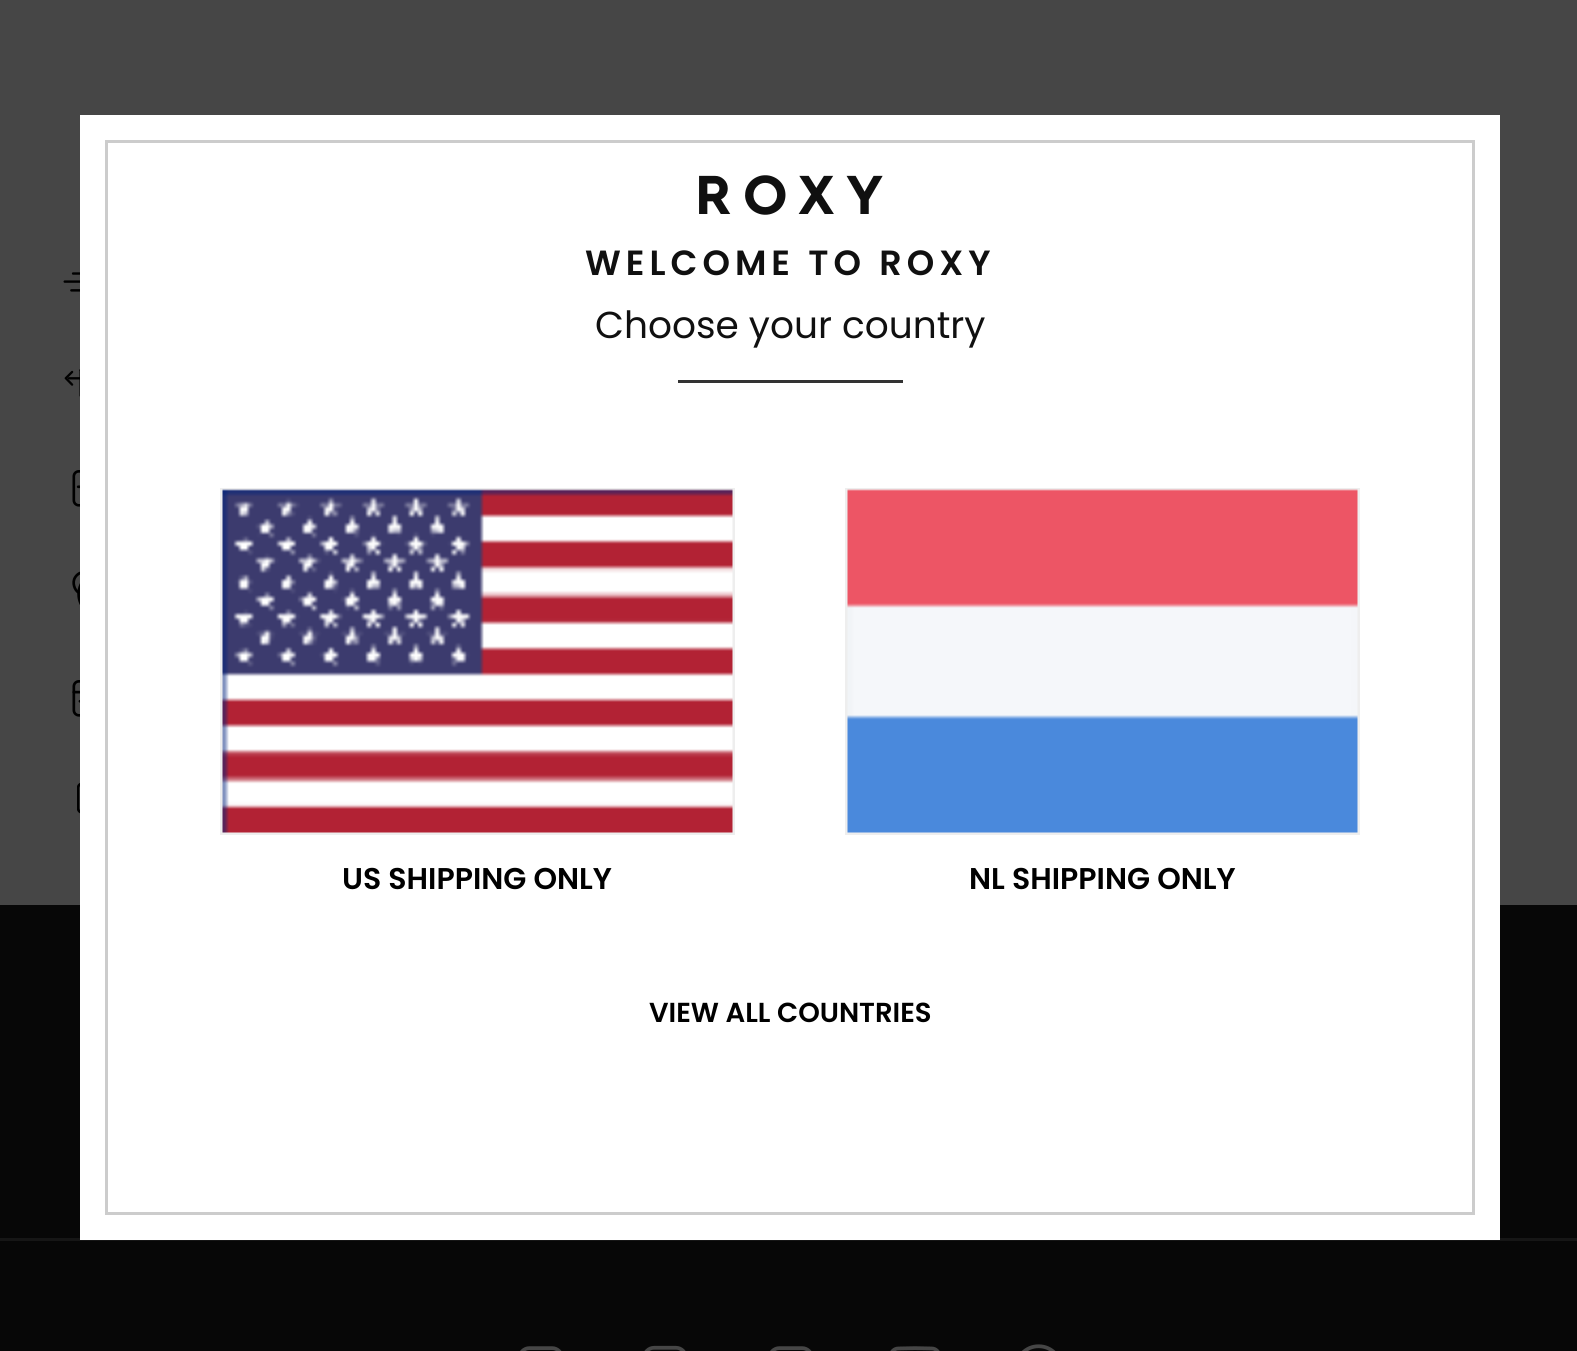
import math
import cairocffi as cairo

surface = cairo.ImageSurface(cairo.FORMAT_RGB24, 1577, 1351)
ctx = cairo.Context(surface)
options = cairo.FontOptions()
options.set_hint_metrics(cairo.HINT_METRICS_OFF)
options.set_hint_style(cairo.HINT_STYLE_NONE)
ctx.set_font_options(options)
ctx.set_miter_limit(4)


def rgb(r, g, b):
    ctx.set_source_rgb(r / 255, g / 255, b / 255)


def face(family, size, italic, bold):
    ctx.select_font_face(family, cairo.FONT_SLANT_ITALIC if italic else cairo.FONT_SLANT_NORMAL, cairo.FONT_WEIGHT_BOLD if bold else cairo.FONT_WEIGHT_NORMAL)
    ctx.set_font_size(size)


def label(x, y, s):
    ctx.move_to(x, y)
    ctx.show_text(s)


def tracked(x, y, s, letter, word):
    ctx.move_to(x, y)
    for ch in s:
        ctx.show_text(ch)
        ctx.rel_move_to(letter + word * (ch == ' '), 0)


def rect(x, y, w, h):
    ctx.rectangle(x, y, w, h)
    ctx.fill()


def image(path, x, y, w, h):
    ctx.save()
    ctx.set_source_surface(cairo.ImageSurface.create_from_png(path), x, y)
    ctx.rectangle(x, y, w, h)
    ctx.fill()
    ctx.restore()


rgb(70, 70, 70)
ctx.paint()
rgb(7, 7, 7)
rect(0, 905, 1577, 446)
rgb(22, 22, 22)
rect(0, 1238, 1577, 3)
rgb(255, 255, 255)
rect(80, 115, 1420, 1125)
ctx.rectangle(106.5, 141.5, 1367, 1072)
rgb(204, 204, 204)
ctx.set_line_width(3)
ctx.stroke()
image('image0.png', 699, 175, 184, 40)
face('Poppins SemiBold', 35, 0, 0)
rgb(16, 16, 16)
tracked(585, 275, 'WELCOME TO ROXY', 5, 0)
face('Poppins', 37.5, 0, 0)
label(595, 338, 'Choose your country')
rgb(51, 51, 51)
rect(678, 380, 225, 3)
ctx.rectangle(221.5, 489.5, 512, 344)
rgb(238, 238, 238)
ctx.stroke()
image('image1.png', 222, 489, 511, 344)
face('Poppins SemiBold', 30, 0, 0)
rgb(0, 0, 0)
label(342, 889, 'US SHIPPING ONLY')
ctx.rectangle(846.5, 489.5, 512, 344)
rgb(238, 238, 238)
ctx.stroke()
image('image2.png', 847, 489, 511, 344)
rgb(0, 0, 0)
label(969, 889, 'NL SHIPPING ONLY')
face('Poppins SemiBold', 27.5, 0, 0)
label(649, 1022, 'VIEW ALL COUNTRIES')
image('image3.png', 63, 272, 17, 20)
image('image4.png', 64, 369, 16, 28)
image('image5.png', 72, 470, 8, 37)
image('image6.png', 72, 571, 8, 34)
image('image7.png', 72, 680, 8, 37)
image('image8.png', 77, 782, 3, 32)
image('image9.png', 520, 1346, 42, 5)
image('image10.png', 644, 1345, 42, 6)
image('image9.png', 770, 1346, 42, 5)
image('image11.png', 890, 1346, 50, 5)
image('image12.png', 1021, 1344, 35, 7)
surface.write_to_png('render.png')
